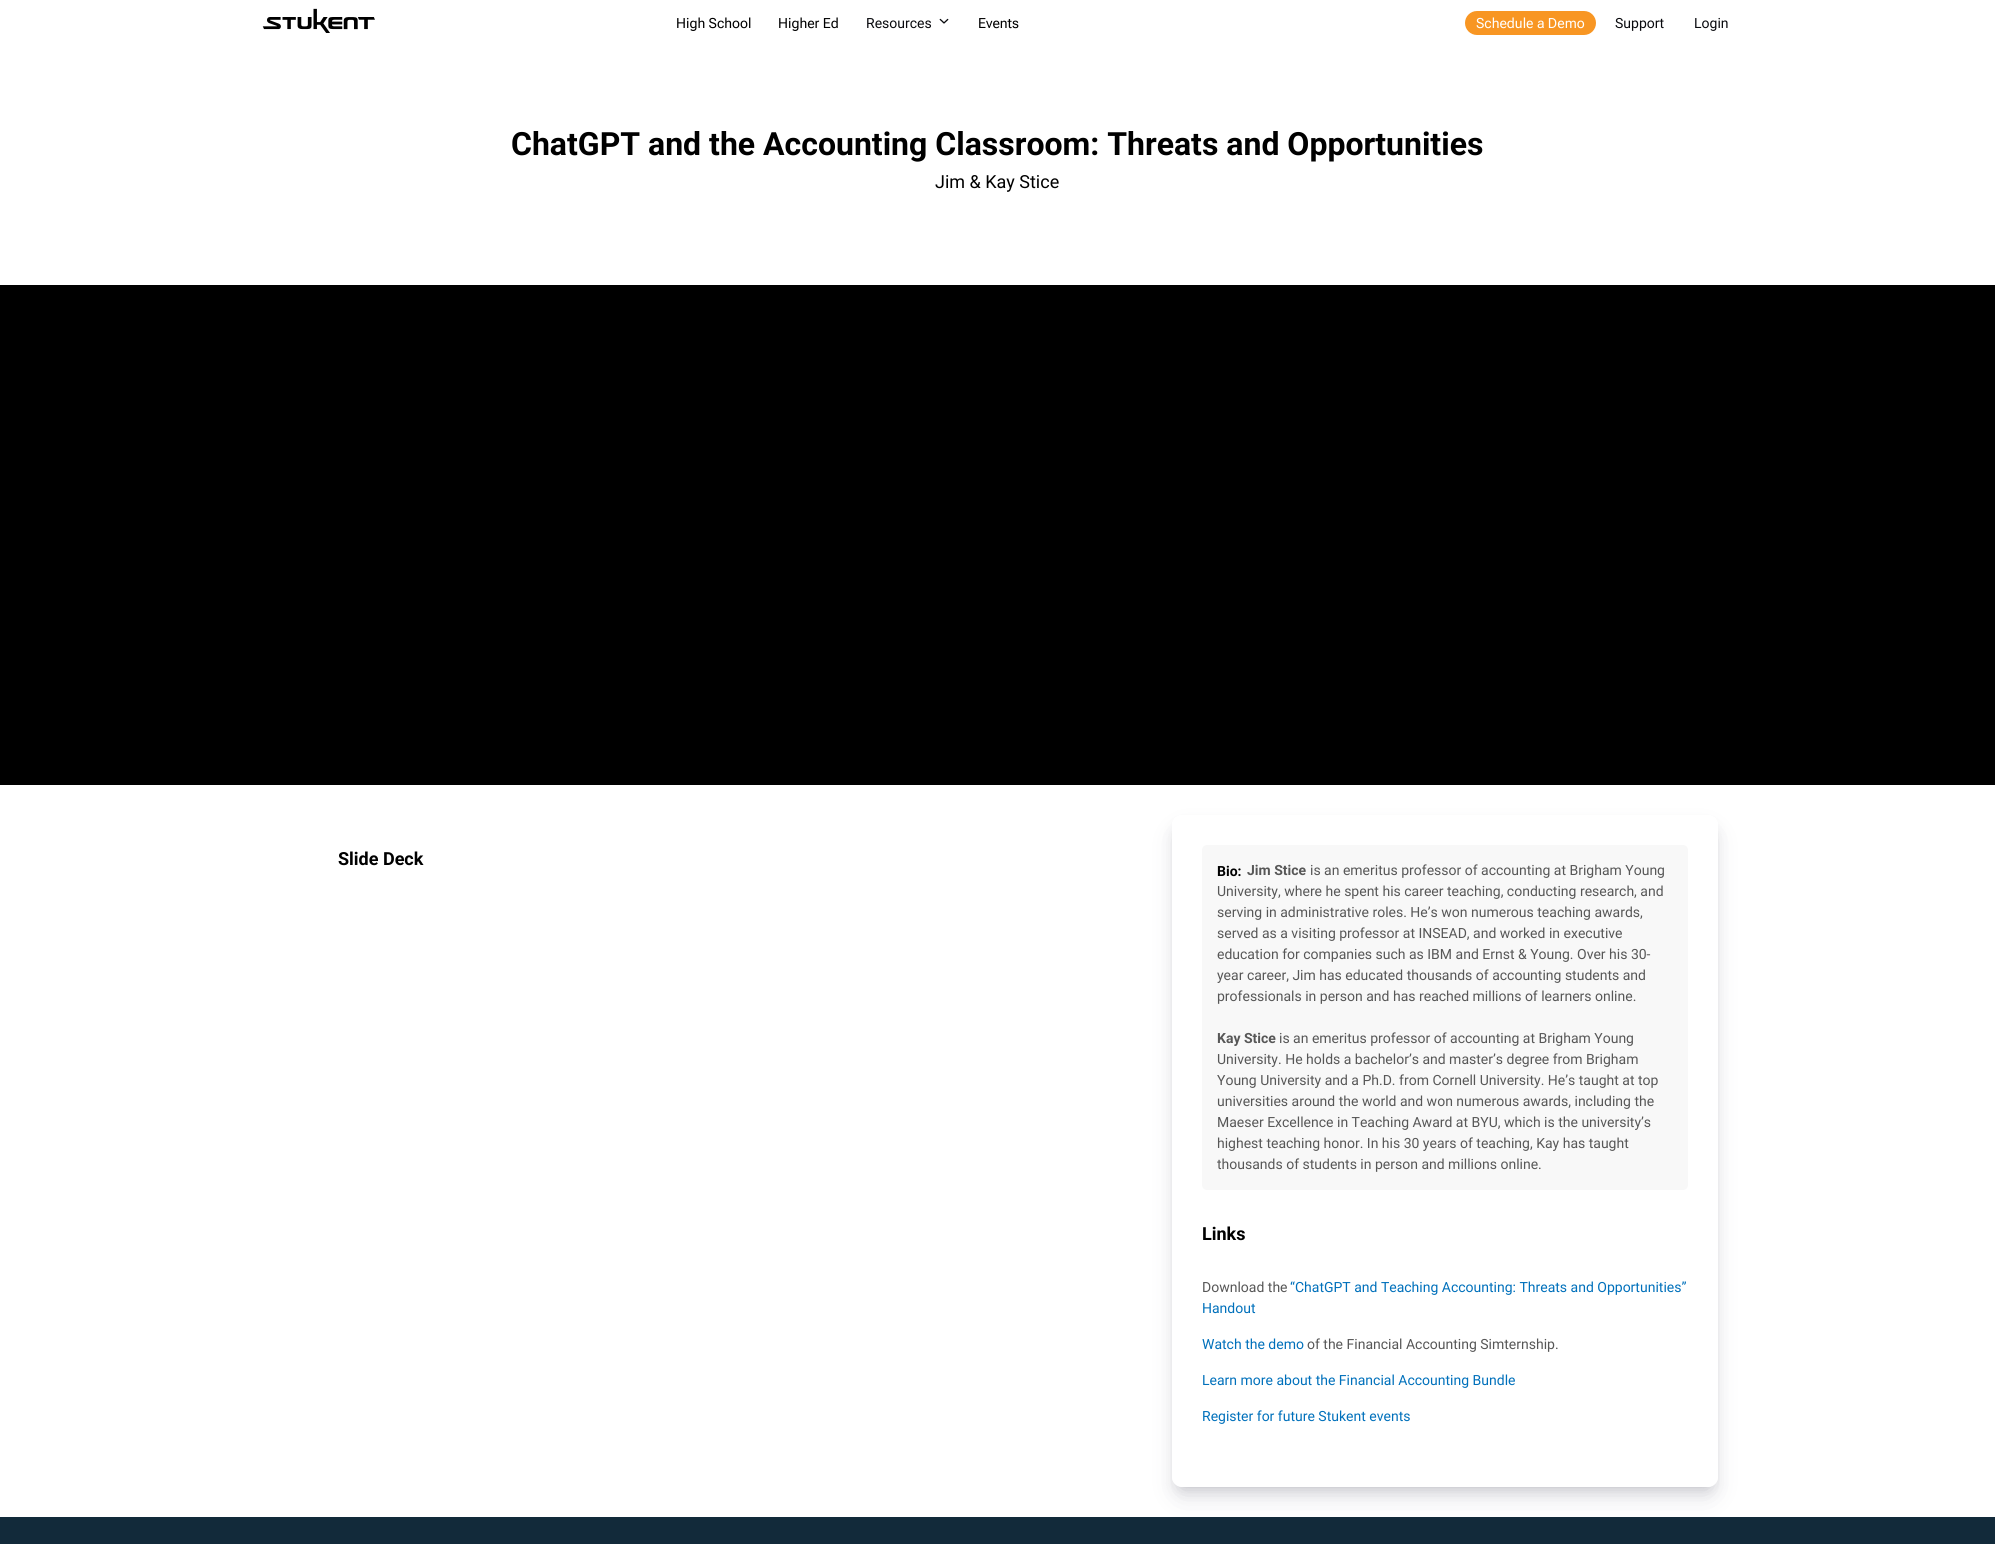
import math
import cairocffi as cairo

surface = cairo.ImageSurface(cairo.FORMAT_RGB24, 1995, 1544)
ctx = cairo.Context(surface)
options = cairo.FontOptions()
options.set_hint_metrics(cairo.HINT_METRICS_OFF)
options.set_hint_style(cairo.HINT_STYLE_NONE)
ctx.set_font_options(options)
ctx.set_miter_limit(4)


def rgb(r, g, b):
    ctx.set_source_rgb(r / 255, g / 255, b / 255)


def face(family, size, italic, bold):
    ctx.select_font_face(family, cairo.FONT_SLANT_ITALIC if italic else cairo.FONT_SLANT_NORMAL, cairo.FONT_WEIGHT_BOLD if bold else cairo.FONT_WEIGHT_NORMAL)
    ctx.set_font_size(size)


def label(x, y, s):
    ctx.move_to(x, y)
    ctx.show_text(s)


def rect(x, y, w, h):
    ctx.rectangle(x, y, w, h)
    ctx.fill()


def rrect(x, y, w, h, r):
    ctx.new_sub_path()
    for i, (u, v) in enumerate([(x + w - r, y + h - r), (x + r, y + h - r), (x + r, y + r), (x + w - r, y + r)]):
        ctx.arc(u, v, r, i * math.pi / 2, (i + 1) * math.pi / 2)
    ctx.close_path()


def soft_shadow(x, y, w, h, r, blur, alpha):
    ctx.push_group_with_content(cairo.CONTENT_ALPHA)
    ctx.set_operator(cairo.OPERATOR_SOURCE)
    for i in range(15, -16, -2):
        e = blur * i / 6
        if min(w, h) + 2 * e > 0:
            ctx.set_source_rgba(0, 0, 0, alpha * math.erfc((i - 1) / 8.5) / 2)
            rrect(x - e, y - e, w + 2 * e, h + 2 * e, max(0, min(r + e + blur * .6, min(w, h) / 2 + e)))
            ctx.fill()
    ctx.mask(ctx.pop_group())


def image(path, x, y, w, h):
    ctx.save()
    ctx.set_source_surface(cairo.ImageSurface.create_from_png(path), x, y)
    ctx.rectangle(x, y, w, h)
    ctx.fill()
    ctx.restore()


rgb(255, 255, 255)
ctx.paint()
image('image0.png', 262, 8, 113, 25)
face('Roboto Flex', 14, 0, 0)
rgb(0, 0, 0)
label(676, 28, 'High School')
label(778, 28, 'Higher Ed')
face('Roboto', 14, 0, 0)
rgb(9, 10, 14)
label(866, 28, 'Resources')
image('image1.png', 939, 18, 10, 6)
face('Roboto Flex', 14, 0, 0)
rgb(0, 0, 0)
label(978, 28, 'Events')
rgb(248, 150, 35)
rrect(1465, 11, 131, 24, 12)
ctx.fill()
rgb(255, 255, 255)
label(1476, 28, 'Schedule a Demo')
face('Roboto', 14, 0, 0)
rgb(9, 10, 14)
label(1615, 28, 'Support')
label(1694, 28, 'Login')
face('Roboto', 32, 0, 1)
rgb(0, 0, 0)
label(511, 155, 'ChatGPT and the Accounting Classroom: Threats and Opportunities')
face('Roboto', 18, 0, 0)
label(935, 188, 'Jim & Kay Stice')
rect(0, 285, 1995, 500)
face('Roboto', 18, 0, 1)
label(338, 865, 'Slide Deck')
ctx.save()
ctx.set_fill_rule(cairo.FILL_RULE_EVEN_ODD)
ctx.new_path()
ctx.move_to(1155, 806)
ctx.line_to(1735, 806)
ctx.line_to(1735, 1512)
ctx.line_to(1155, 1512)
ctx.close_path()
ctx.move_to(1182, 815)
ctx.line_to(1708, 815)
ctx.curve_to(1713.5, 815, 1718, 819.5, 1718, 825)
ctx.line_to(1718, 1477)
ctx.curve_to(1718, 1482.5, 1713.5, 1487, 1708, 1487)
ctx.line_to(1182, 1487)
ctx.curve_to(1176.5, 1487, 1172, 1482.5, 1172, 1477)
ctx.line_to(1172, 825)
ctx.curve_to(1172, 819.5, 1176.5, 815, 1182, 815)
ctx.close_path()
ctx.clip()
rgb(0, 0, 0)
soft_shadow(1180, 831, 530, 656, 2, 8, 0.2)
ctx.restore()
ctx.save()
ctx.set_fill_rule(cairo.FILL_RULE_EVEN_ODD)
ctx.new_path()
ctx.move_to(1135, 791)
ctx.line_to(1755, 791)
ctx.line_to(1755, 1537)
ctx.line_to(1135, 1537)
ctx.close_path()
ctx.move_to(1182, 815)
ctx.line_to(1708, 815)
ctx.curve_to(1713.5, 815, 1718, 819.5, 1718, 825)
ctx.line_to(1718, 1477)
ctx.curve_to(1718, 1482.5, 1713.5, 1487, 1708, 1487)
ctx.line_to(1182, 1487)
ctx.curve_to(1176.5, 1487, 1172, 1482.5, 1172, 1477)
ctx.line_to(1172, 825)
ctx.curve_to(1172, 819.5, 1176.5, 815, 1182, 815)
ctx.close_path()
ctx.clip()
rgb(50, 50, 93)
soft_shadow(1177, 833, 536, 662, 5, 13.5, 0.15)
ctx.restore()
rgb(248, 248, 248)
rrect(1202, 845, 486, 345, 5)
ctx.fill()
face('Roboto', 14, 0, 1)
rgb(87, 87, 87)
label(1247, 875, 'Jim Stice')
face('Roboto', 14, 0, 0)
label(1310, 875, 'is an emeritus professor of accounting at Brigham Young')
label(1217, 896, 'University, where he spent his career teaching, conducting research, and')
label(1217, 917, 'serving in administrative roles. He’s won numerous teaching awards,')
label(1217, 938, 'served as a visiting professor at INSEAD, and worked in executive')
label(1217, 959, 'education for companies such as IBM and Ernst & Young. Over his 30-')
label(1217, 980, 'year career, Jim has educated thousands of accounting students and')
label(1217, 1001, 'professionals in person and has reached millions of learners online.')
face('Roboto', 14, 0, 1)
label(1217, 1043, 'Kay Stice')
face('Roboto', 14, 0, 0)
label(1279, 1043, 'is an emeritus professor of accounting at Brigham Young')
label(1217, 1064, 'University. He holds a bachelor’s and master’s degree from Brigham')
label(1217, 1085, 'Young University and a Ph.D. from Cornell University. He’s taught at top')
label(1217, 1106, 'universities around the world and won numerous awards, including the')
label(1217, 1127, 'Maeser Excellence in Teaching Award at BYU, which is the university’s')
label(1217, 1148, 'highest teaching honor. In his 30 years of teaching, Kay has taught')
label(1217, 1169, 'thousands of students in person and millions online.')
face('Roboto', 14, 0, 1)
rgb(0, 0, 0)
label(1217, 876, 'Bio:')
face('Roboto', 18, 0, 1)
label(1202, 1240, 'Links')
face('Roboto', 14, 0, 0)
rgb(87, 87, 87)
label(1202, 1292, 'Download the')
rgb(0, 112, 187)
label(1290, 1292, '“ChatGPT and Teaching Accounting: Threats and Opportunities”')
label(1202, 1313, 'Handout')
label(1202, 1349, 'Watch the demo')
rgb(87, 87, 87)
label(1307, 1349, 'of the Financial Accounting Simternship.')
rgb(0, 112, 187)
label(1202, 1385, 'Learn more about the Financial Accounting Bundle')
label(1202, 1421, 'Register for future Stukent events')
rgb(18, 42, 58)
rect(0, 1517, 1995, 27)
surface.write_to_png('render.png')
